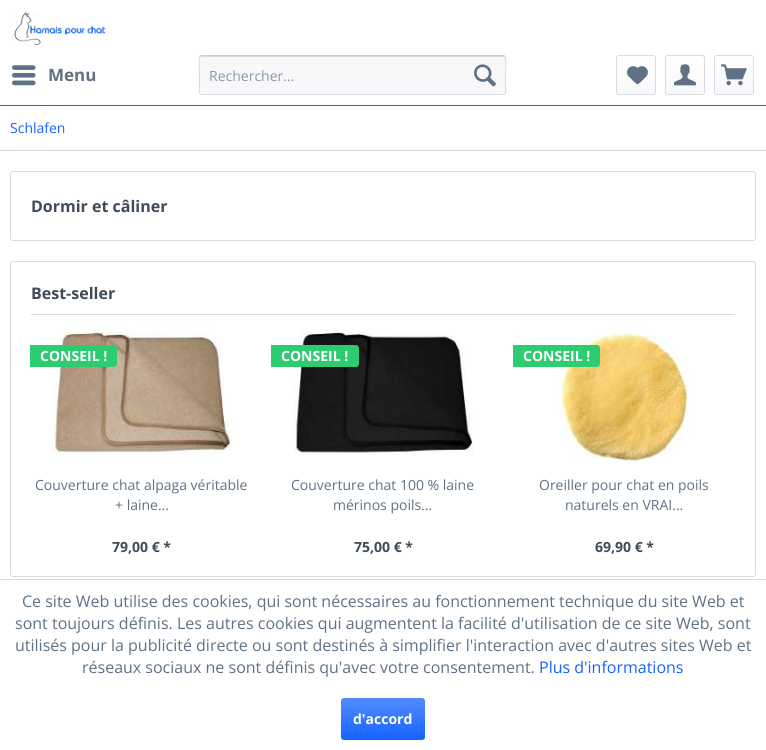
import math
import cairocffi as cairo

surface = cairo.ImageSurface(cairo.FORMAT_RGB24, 766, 750)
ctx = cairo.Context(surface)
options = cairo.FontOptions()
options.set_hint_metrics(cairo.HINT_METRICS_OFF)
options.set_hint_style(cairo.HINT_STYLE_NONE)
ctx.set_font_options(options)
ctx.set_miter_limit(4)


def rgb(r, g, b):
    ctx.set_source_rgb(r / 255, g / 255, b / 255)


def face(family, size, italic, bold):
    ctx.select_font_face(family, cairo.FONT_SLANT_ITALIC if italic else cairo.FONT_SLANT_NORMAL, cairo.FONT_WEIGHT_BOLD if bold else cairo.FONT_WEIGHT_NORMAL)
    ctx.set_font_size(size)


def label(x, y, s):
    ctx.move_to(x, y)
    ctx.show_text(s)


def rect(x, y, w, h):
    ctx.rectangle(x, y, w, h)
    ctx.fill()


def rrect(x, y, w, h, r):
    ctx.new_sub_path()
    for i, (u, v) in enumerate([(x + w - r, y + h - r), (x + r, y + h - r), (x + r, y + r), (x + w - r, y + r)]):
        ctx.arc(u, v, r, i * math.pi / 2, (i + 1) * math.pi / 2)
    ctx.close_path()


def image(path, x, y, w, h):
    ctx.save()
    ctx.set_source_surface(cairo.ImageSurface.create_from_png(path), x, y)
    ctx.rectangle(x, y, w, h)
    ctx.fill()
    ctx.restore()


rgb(255, 255, 255)
ctx.paint()
rgb(22, 99, 255)
rect(0, 105, 766, 1)
image('image0.png', 14, 11, 92, 34)
image('image1.png', 12, 65, 24, 21)
face('Open Sans', 17, 0, 1)
rgb(95, 114, 133)
label(48, 81, 'Menu')
rgb(248, 248, 250)
rrect(199, 55, 307, 40, 3)
ctx.fill()
rgb(218, 218, 229)
ctx.new_path()
ctx.move_to(202, 57)
ctx.line_to(503, 57)
ctx.curve_to(504, 57, 505, 58, 505, 59)
ctx.curve_to(505, 58, 505, 56, 503, 56)
ctx.line_to(201, 56)
ctx.line_to(200, 59)
ctx.curve_to(200, 58, 201, 57, 202, 57)
ctx.close_path()
ctx.fill()
ctx.new_path()
ctx.move_to(200, 56)
ctx.line_to(202, 55.5)
ctx.line_to(503, 55.5)
ctx.line_to(505, 56)
rgb(203, 203, 219)
ctx.set_line_width(1)
ctx.stroke()
ctx.new_path()
ctx.move_to(505, 56)
ctx.curve_to(506.5, 58, 505.5, 72, 505.5, 75)
ctx.line_to(505.5, 86.5)
ctx.curve_to(505.5, 88, 507, 94.5, 503, 94.5)
ctx.line_to(202, 94.5)
ctx.curve_to(198, 94.5, 199.5, 88, 199.5, 86.5)
ctx.line_to(199.5, 75)
ctx.curve_to(199.5, 72, 198.5, 58, 200, 56)
rgb(218, 218, 229)
ctx.stroke()
face('Open Sans', 14, 0, 0)
rgb(135, 152, 169)
label(209, 81, 'Rechercher…')
image('image2.png', 474, 64, 22, 23)
gradient = cairo.LinearGradient(636, 56, 636, 94)
gradient.add_color_stop_rgba(0, 1, 1, 1, 1)
gradient.add_color_stop_rgba(1, 0.973, 0.973, 0.98, 1)
ctx.set_source(gradient)
rrect(617, 56, 38, 38, 2)
ctx.fill()
rrect(616.5, 55.5, 39, 39, 2.5)
rgb(218, 218, 229)
ctx.stroke()
image('image3.png', 627, 66, 21, 19)
gradient = cairo.LinearGradient(685, 56, 685, 94)
gradient.add_color_stop_rgba(0, 1, 1, 1, 1)
gradient.add_color_stop_rgba(1, 0.973, 0.973, 0.98, 1)
ctx.set_source(gradient)
rrect(666, 56, 38, 38, 2)
ctx.fill()
rrect(665.5, 55.5, 39, 39, 2.5)
rgb(218, 218, 229)
ctx.stroke()
image('image4.png', 674, 64, 22, 22)
gradient = cairo.LinearGradient(734, 56, 734, 94)
gradient.add_color_stop_rgba(0, 1, 1, 1, 1)
gradient.add_color_stop_rgba(1, 0.973, 0.973, 0.98, 1)
ctx.set_source(gradient)
rrect(715, 56, 38, 38, 2)
ctx.fill()
rrect(714.5, 55.5, 39, 39, 2.5)
rgb(218, 218, 229)
ctx.stroke()
image('image5.png', 721, 64, 26, 22)
rect(0, 150, 766, 1)
rgb(22, 99, 255)
label(10, 133, 'Schlafen')
rrect(10.5, 171.5, 745, 69, 2.5)
rgb(218, 218, 229)
ctx.stroke()
face('Open Sans', 16, 0, 1)
rgb(63, 76, 88)
label(31, 212, 'Dormir et câliner')
rrect(10.5, 261.5, 745, 315, 2.5)
rgb(218, 218, 229)
ctx.stroke()
rect(31, 314, 704, 1)
rgb(63, 76, 88)
label(31, 299, 'Best-seller')
image('image6.png', 52, 325, 179, 129)
rgb(46, 204, 113)
ctx.new_path()
ctx.move_to(30, 345)
ctx.line_to(114, 345)
ctx.curve_to(115.5, 345, 117, 346.5, 117, 348)
ctx.line_to(117, 364)
ctx.curve_to(117, 365.5, 115.5, 367, 114, 367)
ctx.line_to(30, 367)
ctx.close_path()
ctx.fill()
face('Open Sans', 14, 0, 1)
rgb(255, 255, 255)
label(40, 361, 'CONSEIL !')
face('Open Sans', 14, 0, 0)
rgb(95, 114, 133)
label(35, 490, 'Couverture chat alpaga véritable')
label(115, 510, '+ laine...')
face('Open Sans', 14, 0, 1)
rgb(63, 76, 88)
label(112, 552, '79,00 € *')
image('image7.png', 293, 332, 180, 122)
rgb(46, 204, 113)
ctx.new_path()
ctx.move_to(271, 345)
ctx.line_to(356, 345)
ctx.curve_to(357.5, 345, 359, 346.5, 359, 348)
ctx.line_to(359, 364)
ctx.curve_to(359, 365.5, 357.5, 367, 356, 367)
ctx.line_to(271, 367)
ctx.close_path()
ctx.fill()
rgb(255, 255, 255)
label(281, 361, 'CONSEIL !')
face('Open Sans', 14, 0, 0)
rgb(95, 114, 133)
label(291, 490, 'Couverture chat 100 % laine')
label(333, 510, 'mérinos poils...')
face('Open Sans', 14, 0, 1)
rgb(63, 76, 88)
label(354, 552, '75,00 € *')
image('image8.png', 554, 325, 135, 138)
rgb(46, 204, 113)
ctx.new_path()
ctx.move_to(513, 345)
ctx.line_to(597, 345)
ctx.curve_to(598.5, 345, 600, 346.5, 600, 348)
ctx.line_to(600, 364)
ctx.curve_to(600, 365.5, 598.5, 367, 597, 367)
ctx.line_to(513, 367)
ctx.close_path()
ctx.fill()
rgb(255, 255, 255)
label(523, 361, 'CONSEIL !')
face('Open Sans', 14, 0, 0)
rgb(95, 114, 133)
label(539, 490, 'Oreiller pour chat en poils')
label(565, 510, 'naturels en VRAI...')
face('Open Sans', 14, 0, 1)
rgb(63, 76, 88)
label(595, 552, '69,90 € *')
rgb(218, 218, 229)
rect(0, 579, 766, 1)
face('Open Sans', 16, 0, 0)
rgb(95, 114, 133)
label(22, 607, 'Ce site Web utilise des cookies, qui sont nécessaires au fonctionnement technique du site Web et')
label(15, 629, 'sont toujours définis. Les autres cookies qui augmentent la facilité d\'utilisation de ce site Web, sont')
label(15, 651, 'utilisés pour la publicité directe ou sont destinés à simplifier l\'interaction avec d\'autres sites Web et')
label(82, 673, 'réseaux sociaux ne sont définis qu\'avec votre consentement.')
rgb(22, 99, 255)
label(539, 673, 'Plus d\'informations')
gradient = cairo.LinearGradient(383, 698, 383, 740)
gradient.add_color_stop_rgba(0, 0.325, 0.549, 1, 1)
gradient.add_color_stop_rgba(1, 0.086, 0.388, 1, 1)
ctx.set_source(gradient)
rrect(341, 698, 84, 42, 3)
ctx.fill()
face('Open Sans', 14, 0, 1)
rgb(255, 255, 255)
label(353, 724, 'd\'accord')
surface.write_to_png('render.png')
